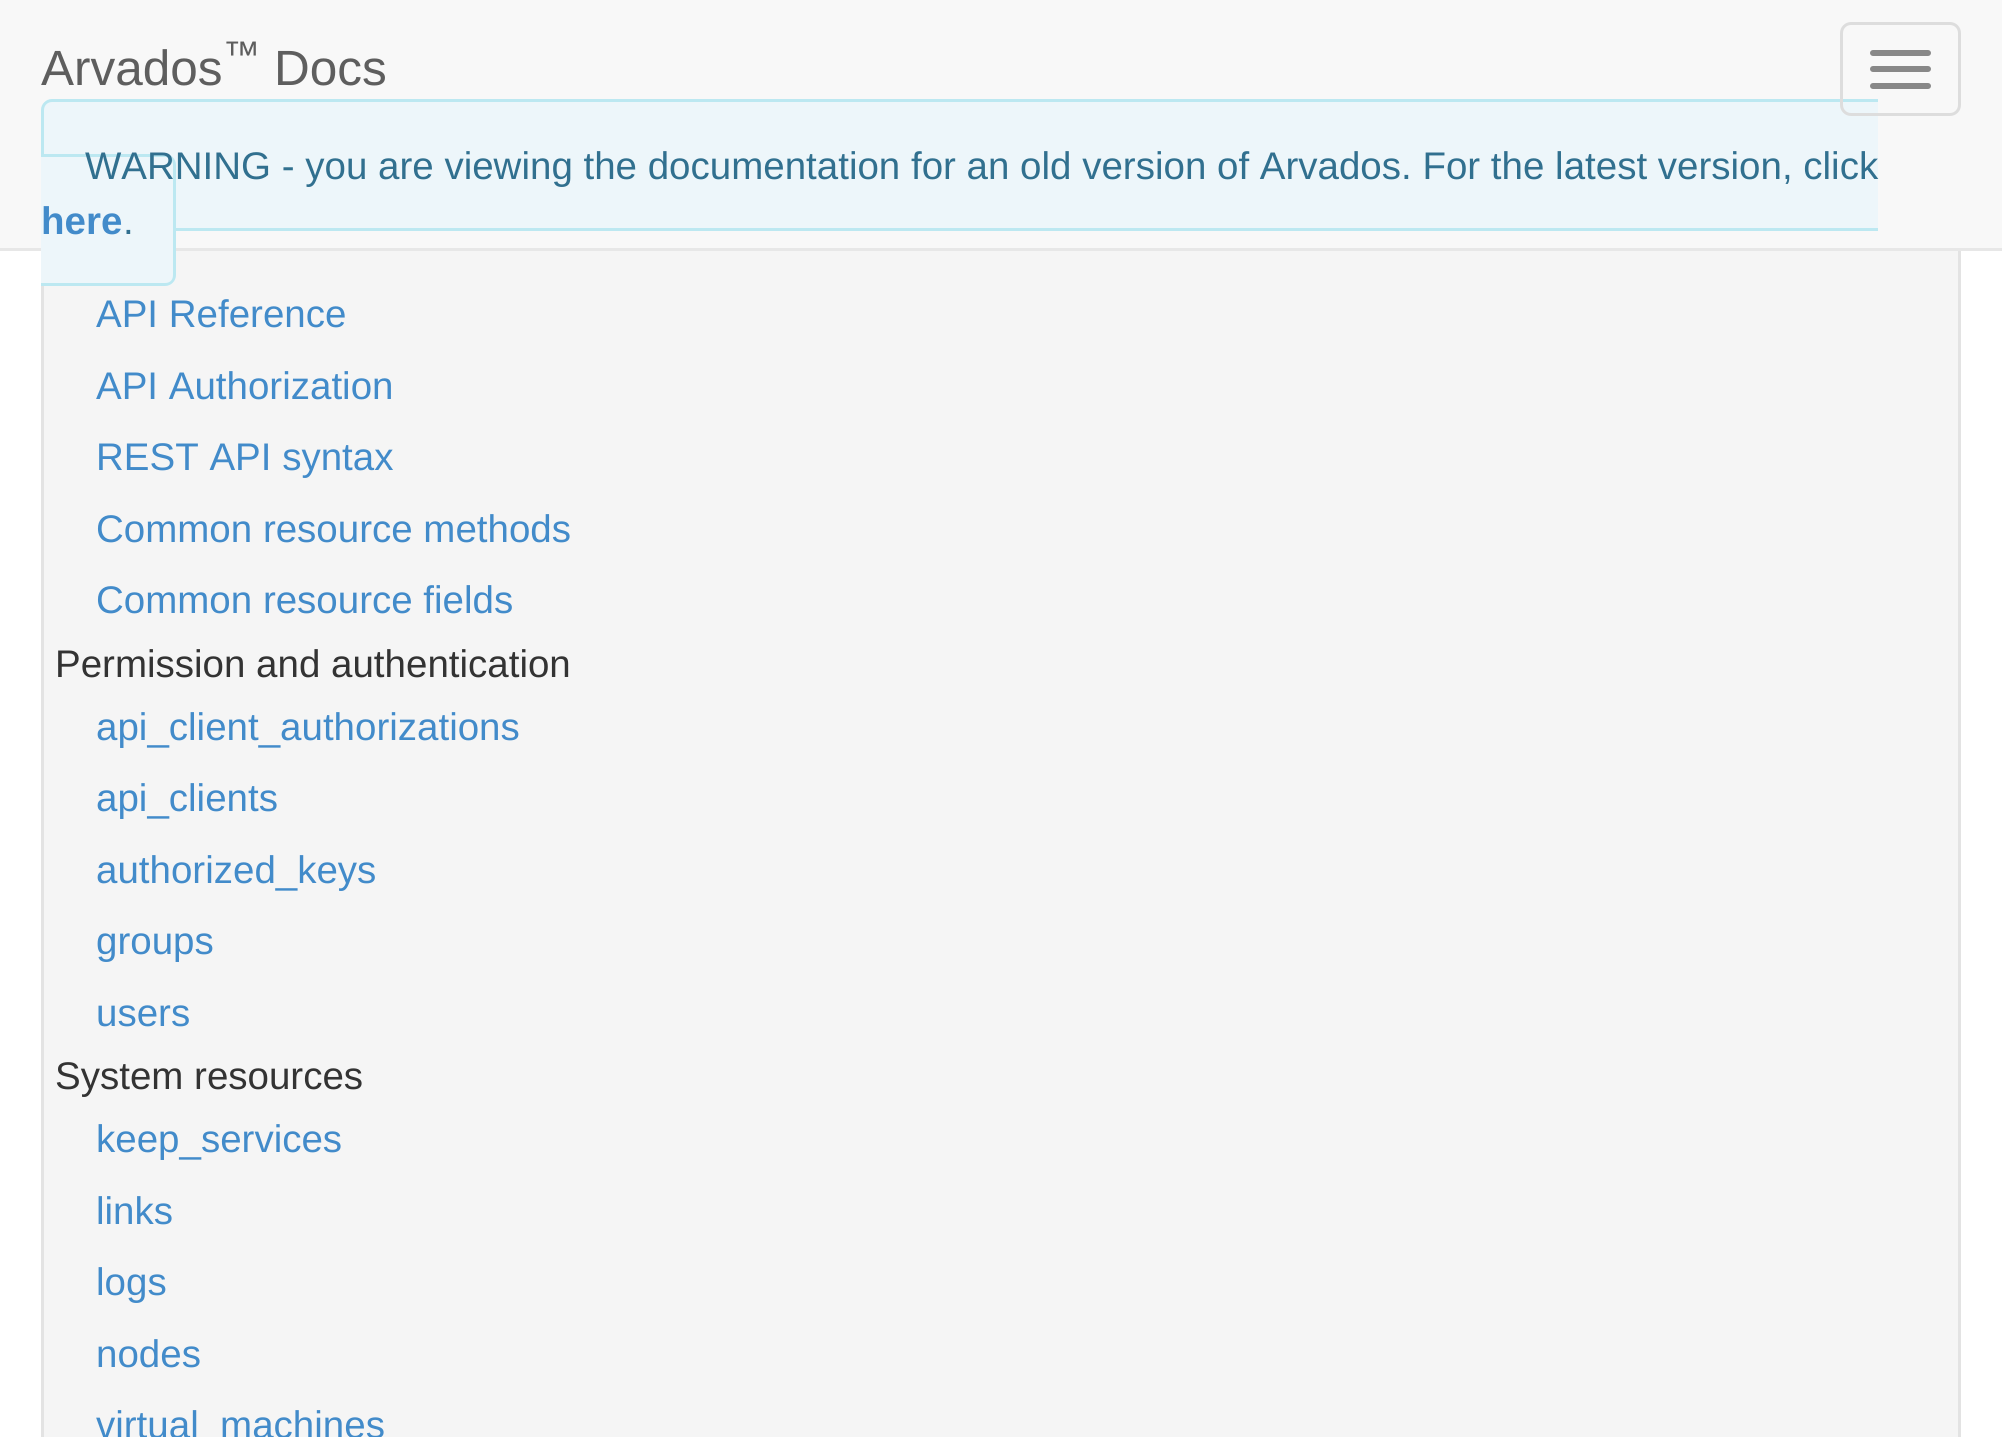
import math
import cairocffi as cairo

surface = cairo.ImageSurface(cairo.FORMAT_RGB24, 2002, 1437)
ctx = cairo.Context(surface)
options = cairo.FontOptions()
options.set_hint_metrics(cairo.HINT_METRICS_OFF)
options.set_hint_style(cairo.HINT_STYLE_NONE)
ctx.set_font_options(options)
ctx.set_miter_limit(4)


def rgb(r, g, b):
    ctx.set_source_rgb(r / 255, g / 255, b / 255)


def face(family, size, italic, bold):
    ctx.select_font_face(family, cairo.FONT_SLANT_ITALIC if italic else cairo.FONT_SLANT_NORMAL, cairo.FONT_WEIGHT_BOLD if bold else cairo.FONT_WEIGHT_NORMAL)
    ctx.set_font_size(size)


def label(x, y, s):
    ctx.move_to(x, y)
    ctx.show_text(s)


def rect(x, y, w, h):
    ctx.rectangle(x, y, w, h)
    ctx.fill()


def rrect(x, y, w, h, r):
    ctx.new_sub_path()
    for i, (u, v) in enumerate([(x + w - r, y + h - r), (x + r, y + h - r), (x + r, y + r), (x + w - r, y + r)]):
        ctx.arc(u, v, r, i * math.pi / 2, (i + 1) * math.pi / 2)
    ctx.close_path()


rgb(255, 255, 255)
ctx.paint()
rgb(245, 245, 245)
rect(44, 251, 1914, 1186)
ctx.rectangle(42.5, 169.5, 1917, 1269)
rgb(227, 227, 227)
ctx.set_line_width(3)
ctx.stroke()
rgb(248, 248, 248)
rect(0, 0, 2002, 248)
rgb(231, 231, 231)
rect(0, 248, 2002, 3)
face('Liberation Sans', 49.5, 0, 0)
rgb(94, 94, 94)
label(41, 85, 'Arvados')
face('Liberation Sans', 37, 0, 0)
label(223, 67, '™')
face('Liberation Sans', 49.5, 0, 0)
label(274, 85, 'Docs')
rgb(237, 246, 250)
ctx.new_path()
ctx.move_to(52, 99)
ctx.line_to(1878, 99)
ctx.line_to(1878, 231)
ctx.line_to(52, 231)
ctx.curve_to(46, 231, 41, 226, 41, 220)
ctx.line_to(41, 110)
ctx.curve_to(41, 104, 46, 99, 52, 99)
ctx.close_path()
ctx.fill()
rgb(188, 232, 241)
ctx.set_fill_rule(cairo.FILL_RULE_EVEN_ODD)
ctx.new_path()
ctx.move_to(52, 99)
ctx.line_to(1878, 99)
ctx.line_to(1878, 231)
ctx.line_to(52, 231)
ctx.curve_to(46, 231, 41, 226, 41, 220)
ctx.line_to(41, 110)
ctx.curve_to(41, 104, 46, 99, 52, 99)
ctx.close_path()
ctx.move_to(52, 102)
ctx.line_to(1878, 102)
ctx.line_to(1878, 228)
ctx.line_to(52, 228)
ctx.curve_to(48, 228, 44, 225, 44, 220)
ctx.line_to(44, 110)
ctx.curve_to(44, 105, 48, 102, 52, 102)
ctx.close_path()
ctx.fill()
rrect(1841.5, 23.5, 118, 91, 9.5)
rgb(221, 221, 221)
ctx.stroke()
rgb(136, 136, 136)
rrect(1870, 50, 61, 6, 3)
ctx.fill()
rrect(1870, 66, 61, 6, 3)
ctx.fill()
rrect(1870, 83, 61, 6, 3)
ctx.fill()
rgb(188, 232, 241)
rect(41, 154, 83, 3)
rgb(237, 246, 250)
rect(41, 157, 83, 126)
ctx.new_path()
ctx.move_to(124, 154)
ctx.line_to(165, 154)
ctx.curve_to(171, 154, 176, 159, 176, 165)
ctx.line_to(176, 275)
ctx.curve_to(176, 281, 171, 286, 165, 286)
ctx.line_to(124, 286)
ctx.close_path()
ctx.fill()
rgb(188, 232, 241)
ctx.new_path()
ctx.move_to(124, 154)
ctx.line_to(165, 154)
ctx.curve_to(171, 154, 176, 159, 176, 165)
ctx.line_to(176, 275)
ctx.curve_to(176, 281, 171, 286, 165, 286)
ctx.line_to(124, 286)
ctx.close_path()
ctx.move_to(124, 157)
ctx.line_to(165, 157)
ctx.curve_to(170, 157, 173, 160, 173, 165)
ctx.line_to(173, 275)
ctx.curve_to(173, 280, 170, 283, 165, 283)
ctx.line_to(124, 283)
ctx.close_path()
ctx.fill()
face('Liberation Sans', 38.5, 0, 0)
rgb(49, 112, 143)
label(85, 179, 'WARNING - you are viewing the documentation for an old version of Arvados. For the latest version, click')
face('Liberation Sans', 38.5, 0, 1)
rgb(66, 139, 202)
label(41, 234, 'here')
face('Liberation Sans', 38.5, 0, 0)
rgb(49, 112, 143)
label(123, 234, '.')
rgb(188, 232, 241)
rect(41, 283, 83, 3)
rgb(66, 139, 202)
label(96, 327, 'API Reference')
label(96, 399, 'API Authorization')
label(96, 470, 'REST API syntax')
label(96, 542, 'Common resource methods')
label(96, 613, 'Common resource fields')
rgb(51, 51, 51)
label(55, 677, 'Permission and authentication')
rgb(66, 139, 202)
label(96, 740, 'api_client_authorizations')
label(96, 811, 'api_clients')
label(96, 883, 'authorized_keys')
label(96, 954, 'groups')
label(96, 1026, 'users')
rgb(51, 51, 51)
label(55, 1089, 'System resources')
rgb(66, 139, 202)
label(96, 1152, 'keep_services')
label(96, 1224, 'links')
label(96, 1295, 'logs')
label(96, 1367, 'nodes')
label(96, 1438, 'virtual_machines')
surface.write_to_png('render.png')
